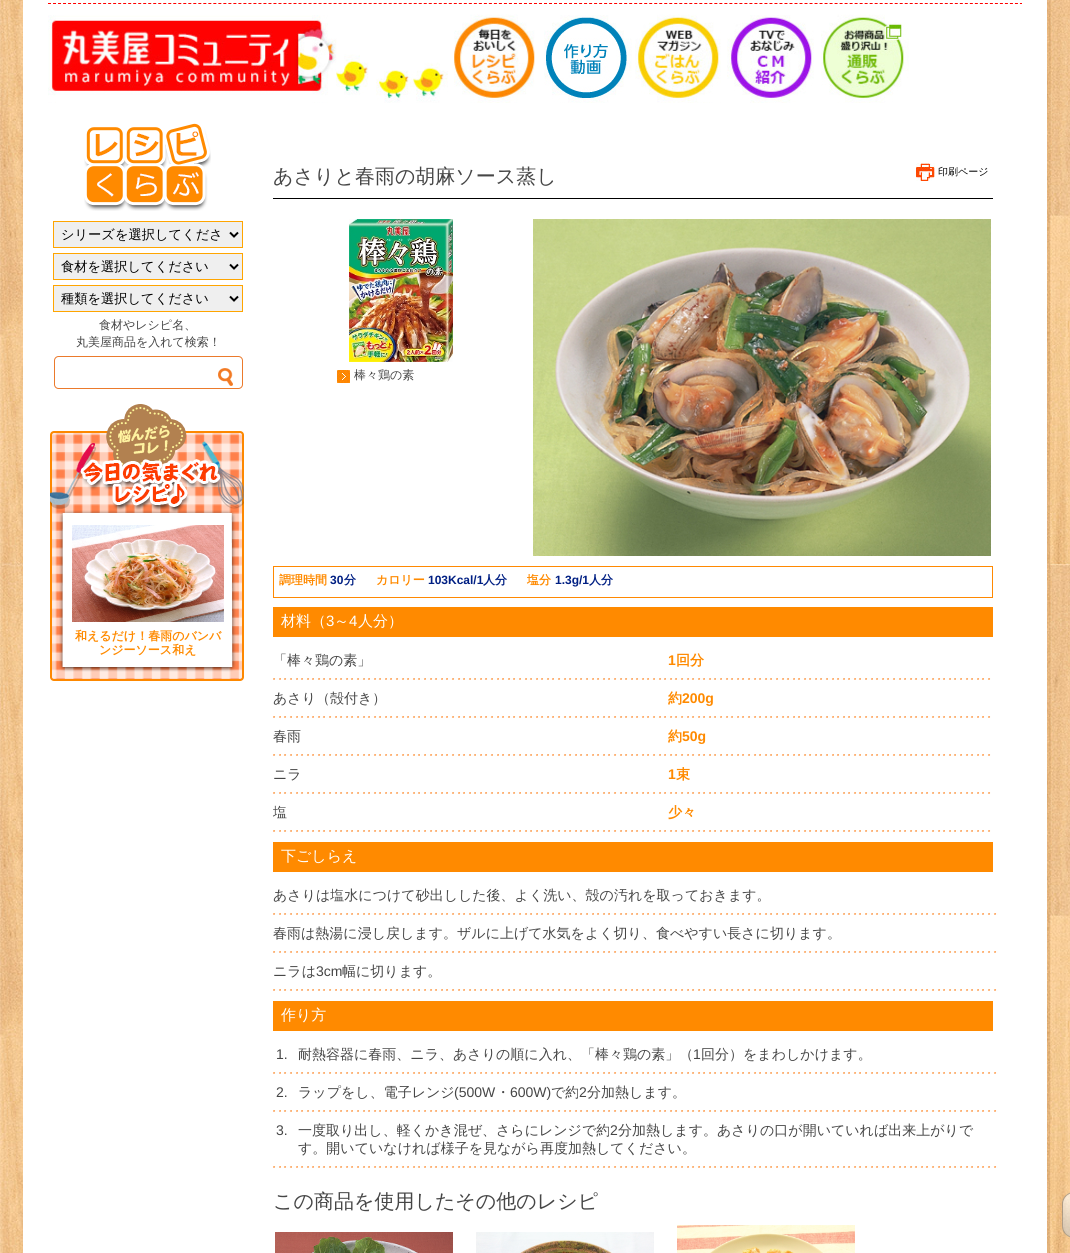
import math
import cairocffi as cairo

surface = cairo.ImageSurface(cairo.FORMAT_RGB24, 1070, 1253)
ctx = cairo.Context(surface)
options = cairo.FontOptions()
options.set_hint_metrics(cairo.HINT_METRICS_OFF)
options.set_hint_style(cairo.HINT_STYLE_NONE)
ctx.set_font_options(options)
ctx.set_miter_limit(4)


def rgb(r, g, b):
    ctx.set_source_rgb(r / 255, g / 255, b / 255)


def face(family, size, italic, bold):
    ctx.select_font_face(family, cairo.FONT_SLANT_ITALIC if italic else cairo.FONT_SLANT_NORMAL, cairo.FONT_WEIGHT_BOLD if bold else cairo.FONT_WEIGHT_NORMAL)
    ctx.set_font_size(size)


def label(x, y, s):
    ctx.move_to(x, y)
    ctx.show_text(s)


def rect(x, y, w, h):
    ctx.rectangle(x, y, w, h)
    ctx.fill()


def image(path, x, y, w, h):
    ctx.save()
    ctx.set_source_surface(cairo.ImageSurface.create_from_png(path), x, y)
    ctx.rectangle(x, y, w, h)
    ctx.fill()
    ctx.restore()


rgb(255, 255, 255)
ctx.paint()
image('image0.png', 0, 0, 1070, 1253)
rgb(255, 255, 255)
rect(23, 0, 1024, 1253)
ctx.new_path()
ctx.move_to(48, 3.5)
ctx.line_to(1022, 3.5)
rgb(255, 0, 0)
ctx.set_line_width(1)
ctx.set_dash([3, 2.01])
ctx.stroke()
image('image1.png', 48, 15, 400, 88)
image('image2.png', 454, 14, 81, 89)
image('image3.png', 544, 15, 88, 88)
image('image4.png', 635, 14, 86, 89)
image('image5.png', 727, 15, 87, 88)
image('image6.png', 821, 14, 88, 89)
image('image7.png', 84, 123, 127, 88)
rgb(239, 239, 239)
ctx.rectangle(53.5, 221.5, 189, 26)
ctx.fill_preserve()
rgb(255, 165, 0)
ctx.set_dash([])
ctx.stroke()
ctx.new_path()
ctx.move_to(230, 232.5)
ctx.line_to(234, 236.5)
ctx.line_to(238, 232.5)
rgb(0, 0, 0)
ctx.set_line_width(2)
ctx.stroke()
face('WenQuanYi Zen Hei Medium', 13.25, 0, 0)
label(61, 239, 'シリーズを選択してくださ')
rgb(239, 239, 239)
ctx.rectangle(53.5, 253.5, 189, 26)
ctx.fill_preserve()
rgb(255, 165, 0)
ctx.set_line_width(1)
ctx.stroke()
ctx.new_path()
ctx.move_to(230, 264.5)
ctx.line_to(234, 268.5)
ctx.line_to(238, 264.5)
rgb(0, 0, 0)
ctx.set_line_width(2)
ctx.stroke()
label(61, 271, '食材を選択してください')
rgb(239, 239, 239)
ctx.rectangle(53.5, 285.5, 189, 26)
ctx.fill_preserve()
rgb(255, 165, 0)
ctx.set_line_width(1)
ctx.stroke()
ctx.new_path()
ctx.move_to(230, 296.5)
ctx.line_to(234, 300.5)
ctx.line_to(238, 296.5)
rgb(0, 0, 0)
ctx.set_line_width(2)
ctx.stroke()
label(61, 303, '種類を選択してください')
face('WenQuanYi Zen Hei Medium', 12, 0, 0)
rgb(70, 70, 70)
label(99, 329, '食材やレシピ名、')
label(76, 346, '丸美屋商品を入れて検索！')
image('image8.png', 54, 356, 189, 33)
image('image9.png', 218, 368, 15, 18)
image('image10.png', 50, 404, 194, 277)
image('image11.png', 72, 525, 152, 97)
face('WenQuanYi Zen Hei', 12, 0, 1)
rgb(255, 138, 0)
label(75, 640, '和えるだけ！春雨のバンバ')
label(99, 654, 'ンジーソース和え')
face('WenQuanYi Zen Hei Medium', 20, 0, 0)
rgb(70, 70, 70)
label(273, 183, 'あさりと春雨の胡麻ソース蒸し')
image('image12.png', 916, 163, 19, 18)
face('WenQuanYi Zen Hei Medium', 10, 0, 0)
rgb(0, 0, 0)
label(938, 175, '印刷ページ')
rect(273, 198, 720, 1)
image('image13.png', 349, 219, 104, 143)
image('image14.png', 337, 370, 13, 13)
face('WenQuanYi Zen Hei Medium', 12, 0, 0)
rgb(70, 70, 70)
label(354, 379, '棒々鶏の素')
image('image15.png', 533, 219, 458, 337)
ctx.rectangle(273.5, 566.5, 719, 31)
rgb(255, 137, 1)
ctx.set_line_width(1)
ctx.stroke()
face('WenQuanYi Zen Hei', 12, 0, 1)
rgb(255, 138, 0)
label(279, 584, '調理時間')
face('Liberation Sans', 12, 0, 1)
rgb(0, 31, 131)
label(330, 584, '30')
face('WenQuanYi Zen Hei', 12, 0, 1)
label(344, 584, '分')
rgb(255, 138, 0)
label(376, 584, 'カロリー')
face('Liberation Sans', 12, 0, 1)
rgb(0, 31, 131)
label(428, 584, '103Kcal/1')
face('WenQuanYi Zen Hei', 12, 0, 1)
label(483, 584, '人分')
rgb(255, 138, 0)
label(527, 584, '塩分')
face('Liberation Sans', 12, 0, 1)
rgb(0, 31, 131)
label(555, 584, '1.3g/1')
face('WenQuanYi Zen Hei', 12, 0, 1)
label(589, 584, '人分')
rgb(255, 138, 0)
rect(273, 607, 720, 30)
face('WenQuanYi Zen Hei Medium', 15, 0, 0)
rgb(255, 255, 255)
label(281, 626, '材料（')
face('Liberation Sans', 15, 0, 0)
label(326, 626, '3')
face('WenQuanYi Zen Hei Medium', 15, 0, 0)
label(334, 626, '～')
face('Liberation Sans', 15, 0, 0)
label(349, 626, '4')
face('WenQuanYi Zen Hei Medium', 15, 0, 0)
label(358, 626, '人分）')
image('image16.png', 273, 678, 718, 2)
face('WenQuanYi Zen Hei Medium', 14, 0, 0)
rgb(70, 70, 70)
label(273, 665, '「棒々鶏の素」')
face('Liberation Sans', 14, 0, 1)
rgb(255, 138, 0)
label(668, 665, '1')
face('WenQuanYi Zen Hei', 14, 0, 1)
label(676, 665, '回分')
image('image16.png', 273, 716, 718, 2)
face('WenQuanYi Zen Hei Medium', 14, 0, 0)
rgb(70, 70, 70)
label(273, 703, 'あさり（殻付き）')
face('WenQuanYi Zen Hei', 14, 0, 1)
rgb(255, 138, 0)
label(668, 703, '約')
face('Liberation Sans', 14, 0, 1)
label(682, 703, '200g')
image('image16.png', 273, 754, 718, 2)
face('WenQuanYi Zen Hei Medium', 14, 0, 0)
rgb(70, 70, 70)
label(273, 741, '春雨')
face('WenQuanYi Zen Hei', 14, 0, 1)
rgb(255, 138, 0)
label(668, 741, '約')
face('Liberation Sans', 14, 0, 1)
label(682, 741, '50g')
image('image16.png', 273, 792, 718, 2)
face('WenQuanYi Zen Hei Medium', 14, 0, 0)
rgb(70, 70, 70)
label(273, 779, 'ニラ')
face('Liberation Sans', 14, 0, 1)
rgb(255, 138, 0)
label(668, 779, '1')
face('WenQuanYi Zen Hei', 14, 0, 1)
label(676, 779, '束')
image('image16.png', 273, 830, 718, 2)
face('WenQuanYi Zen Hei Medium', 14, 0, 0)
rgb(70, 70, 70)
label(273, 817, '塩')
face('WenQuanYi Zen Hei', 14, 0, 1)
rgb(255, 138, 0)
label(668, 817, '少々')
rect(273, 842, 720, 30)
face('WenQuanYi Zen Hei Medium', 15, 0, 0)
rgb(255, 255, 255)
label(281, 861, '下ごしらえ')
image('image17.png', 273, 913, 725, 2)
face('WenQuanYi Zen Hei Medium', 14, 0, 0)
rgb(70, 70, 70)
label(273, 900, 'あさりは塩水につけて砂出しした後、よく洗い、殻の汚れを取っておきます。')
image('image17.png', 273, 951, 725, 2)
label(273, 938, '春雨は熱湯に浸し戻します。ザルに上げて水気をよく切り、食べやすい長さに切ります。')
image('image17.png', 273, 989, 725, 2)
label(273, 976, 'ニラは')
face('Liberation Sans', 14, 0, 0)
label(316, 976, '3cm')
face('WenQuanYi Zen Hei Medium', 14, 0, 0)
label(342, 976, '幅に切ります。')
rgb(255, 138, 0)
rect(273, 1001, 720, 30)
face('WenQuanYi Zen Hei Medium', 15, 0, 0)
rgb(255, 255, 255)
label(281, 1020, '作り方')
image('image17.png', 273, 1072, 725, 2)
face('Liberation Sans', 14, 0, 0)
rgb(70, 70, 70)
label(276, 1059, '1.')
face('WenQuanYi Zen Hei Medium', 14, 0, 0)
label(298, 1059, '耐熱容器に春雨、ニラ、あさりの順に入れ、「棒々鶏の素」（')
face('Liberation Sans', 14, 0, 0)
label(693, 1059, '1')
face('WenQuanYi Zen Hei Medium', 14, 0, 0)
label(701, 1059, '回分）をまわしかけます。')
image('image17.png', 273, 1110, 725, 2)
face('Liberation Sans', 14, 0, 0)
label(276, 1097, '2.')
face('WenQuanYi Zen Hei Medium', 14, 0, 0)
label(298, 1097, 'ラップをし、電子レンジ')
face('Liberation Sans', 14, 0, 0)
label(454, 1097, '(500W')
face('WenQuanYi Zen Hei Medium', 14, 0, 0)
label(496, 1097, '・')
face('Liberation Sans', 14, 0, 0)
label(510, 1097, '600W)')
face('WenQuanYi Zen Hei Medium', 14, 0, 0)
label(551, 1097, 'で約')
face('Liberation Sans', 14, 0, 0)
label(579, 1097, '2')
face('WenQuanYi Zen Hei Medium', 14, 0, 0)
label(587, 1097, '分加熱します。')
image('image17.png', 273, 1166, 725, 2)
face('Liberation Sans', 14, 0, 0)
label(276, 1135, '3.')
face('WenQuanYi Zen Hei Medium', 14, 0, 0)
label(298, 1135, '一度取り出し、軽くかき混ぜ、さらにレンジで約')
face('Liberation Sans', 14, 0, 0)
label(610, 1135, '2')
face('WenQuanYi Zen Hei Medium', 14, 0, 0)
label(618, 1135, '分加熱します。あさりの口が開いていれば出来上がりで')
label(298, 1153, 'す。開いていなければ様子を見ながら再度加熱してください。')
face('WenQuanYi Zen Hei Medium', 20, 0, 0)
label(273, 1208, 'この商品を使用したその他のレシピ')
image('image18.png', 275, 1232, 178, 21)
image('image19.png', 476, 1232, 178, 21)
image('image20.png', 677, 1225, 178, 28)
image('image21.png', 1062, 1192, 8, 46)
surface.write_to_png('render.png')
